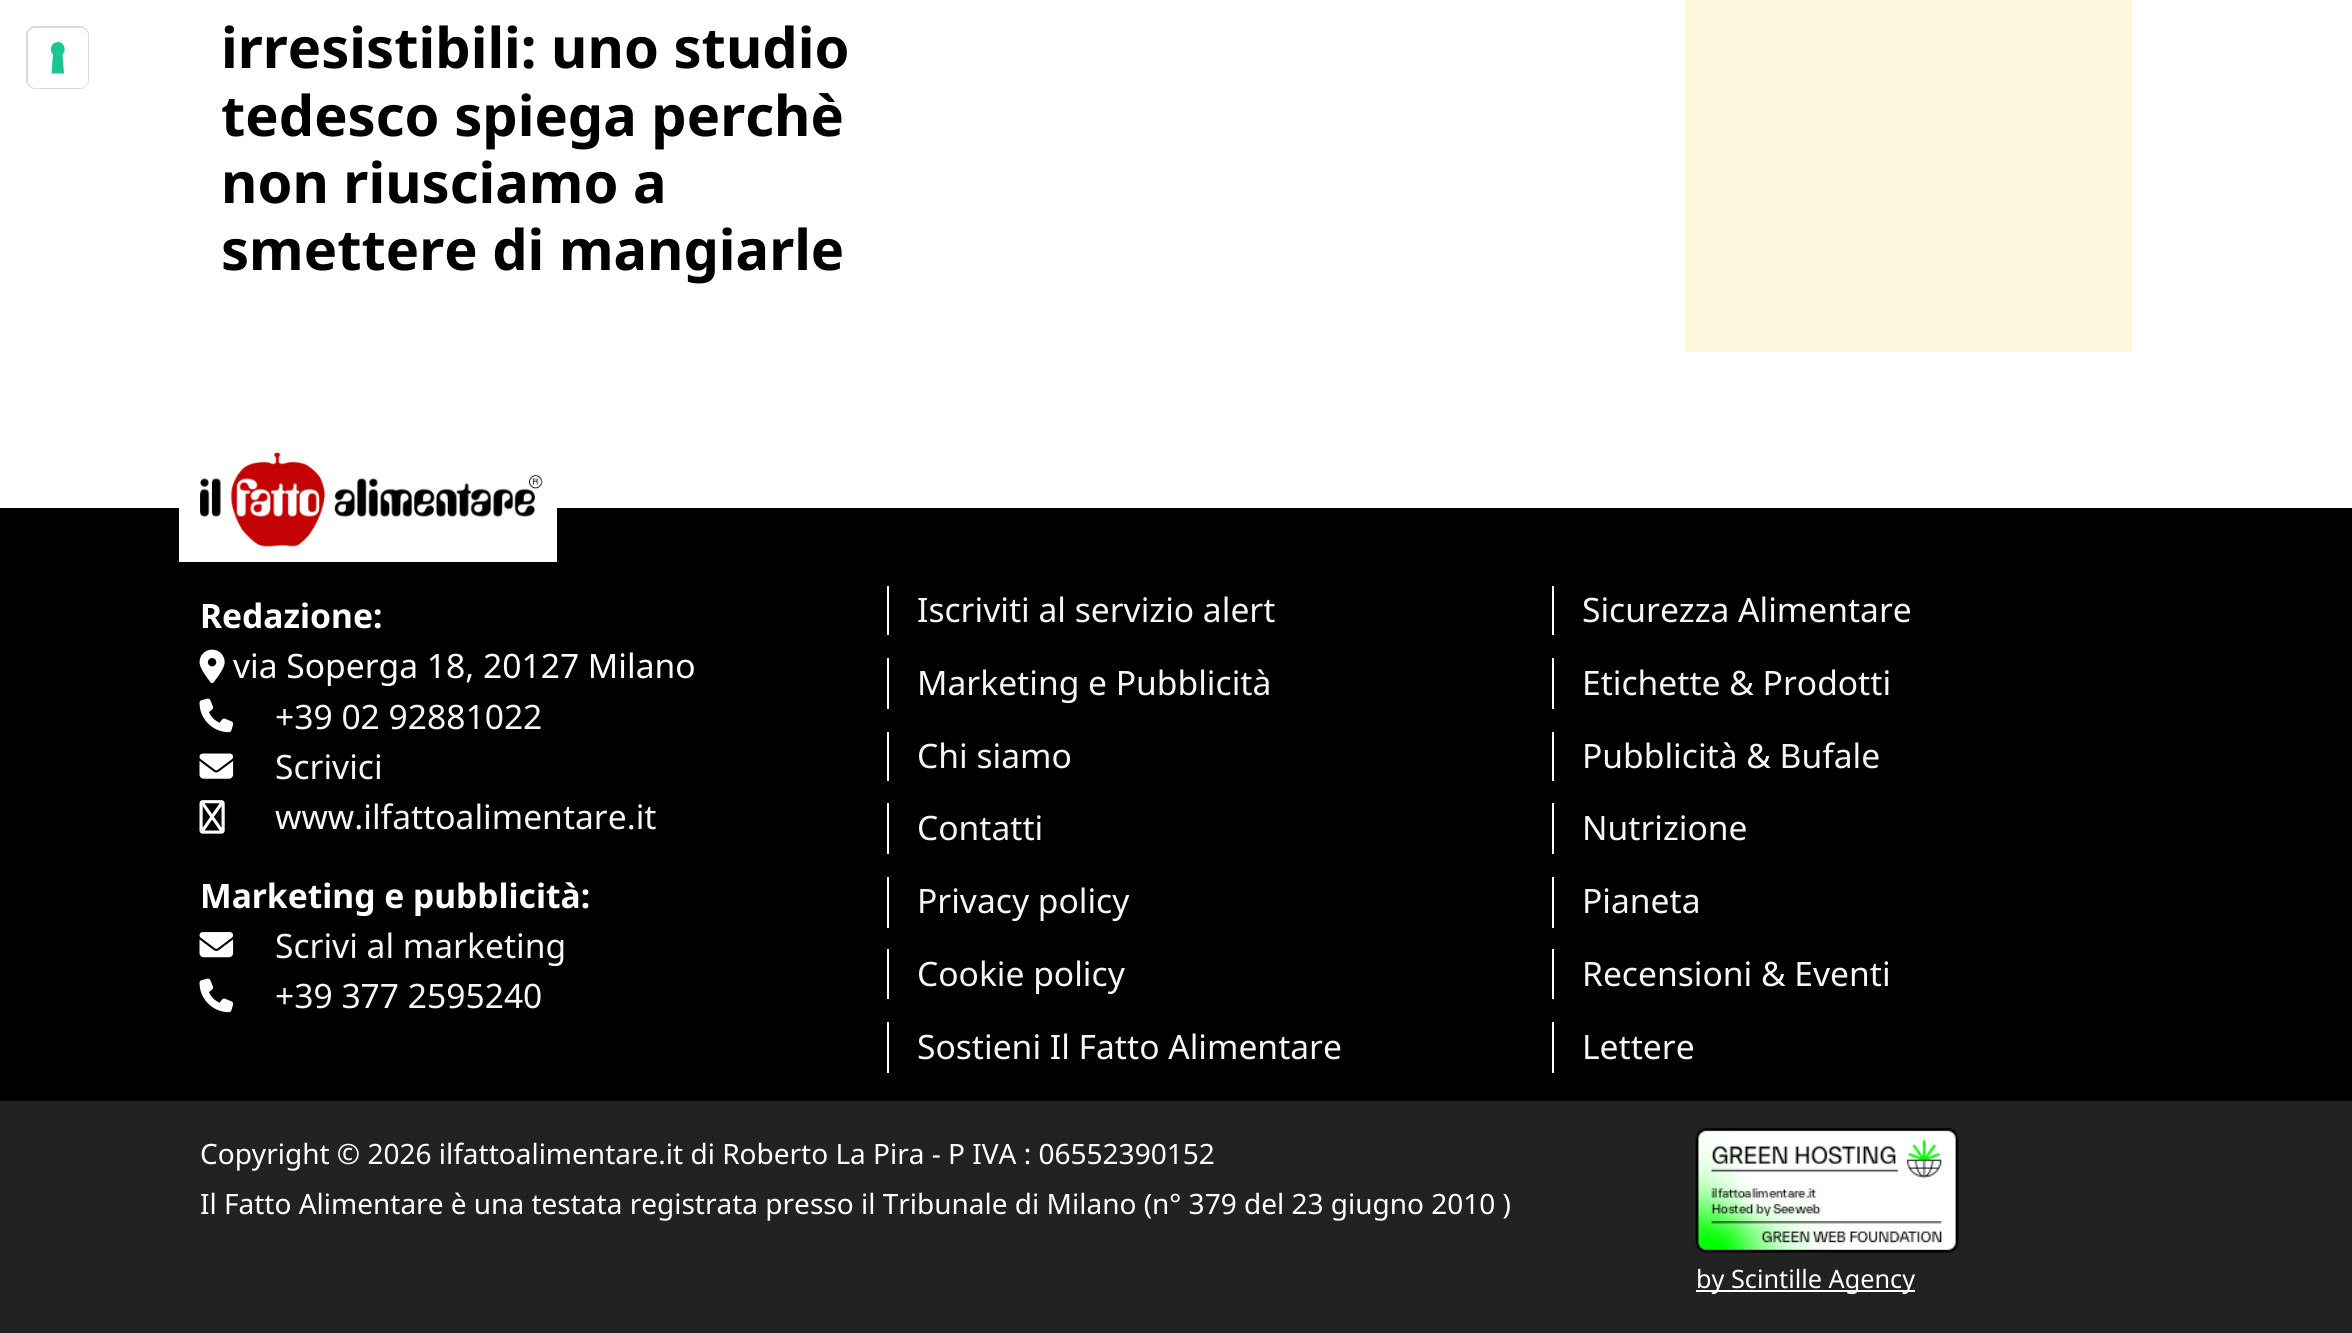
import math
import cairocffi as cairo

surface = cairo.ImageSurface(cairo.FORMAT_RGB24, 2352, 1333)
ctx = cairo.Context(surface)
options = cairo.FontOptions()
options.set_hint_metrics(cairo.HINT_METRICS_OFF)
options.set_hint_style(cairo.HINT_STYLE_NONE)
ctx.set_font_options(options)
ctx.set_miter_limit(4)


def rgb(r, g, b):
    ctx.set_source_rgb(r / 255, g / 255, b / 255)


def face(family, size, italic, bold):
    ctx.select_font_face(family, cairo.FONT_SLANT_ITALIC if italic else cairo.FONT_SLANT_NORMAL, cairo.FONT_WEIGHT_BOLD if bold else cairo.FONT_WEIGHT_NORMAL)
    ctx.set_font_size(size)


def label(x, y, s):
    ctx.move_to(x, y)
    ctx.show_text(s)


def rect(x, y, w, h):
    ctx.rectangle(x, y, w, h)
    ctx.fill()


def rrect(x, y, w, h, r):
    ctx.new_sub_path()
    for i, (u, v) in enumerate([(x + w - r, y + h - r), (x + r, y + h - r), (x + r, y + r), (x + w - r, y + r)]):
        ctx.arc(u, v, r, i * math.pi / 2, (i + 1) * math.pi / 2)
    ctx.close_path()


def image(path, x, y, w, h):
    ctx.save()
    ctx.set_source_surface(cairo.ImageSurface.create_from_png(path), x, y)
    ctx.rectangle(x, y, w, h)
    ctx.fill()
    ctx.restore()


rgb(255, 255, 255)
ctx.paint()
rrect(27, 27, 61, 61, 8)
rgb(217, 217, 217)
ctx.stroke()
rgb(255, 255, 255)
rrect(28, 28, 60, 60, 7)
ctx.fill()
rgb(28, 198, 145)
ctx.set_fill_rule(cairo.FILL_RULE_EVEN_ODD)
ctx.new_path()
ctx.move_to(58, 42)
ctx.curve_to(64, 42, 67, 50, 62.5, 54.5)
ctx.line_to(64, 73.5)
ctx.line_to(51.5, 73.5)
ctx.line_to(53, 54.5)
ctx.curve_to(48.5, 50, 51.5, 42, 58, 42)
ctx.close_path()
ctx.fill()
face('Noto Sans', 56, 0, 1)
rgb(0, 0, 0)
label(221, 68, 'irresistibili: uno studio')
label(221, 136, 'tedesco spiega perchè')
label(221, 203, 'non riusciamo a')
label(221, 270, 'smettere di mangiarle')
rgb(254, 245, 221)
rect(1685, 0, 447, 352)
rgb(0, 0, 0)
rect(0, 508, 2352, 593)
rgb(255, 255, 255)
rect(179, 508, 378, 54)
image('image0.png', 200, 452, 343, 95)
face('Noto Sans', 33.6, 0, 1)
label(200, 628, 'Redazione:')
image('image1.png', 199, 649, 26, 35)
face('Noto Sans', 33.6, 0, 0)
label(233, 678, 'via Soperga 18, 20127 Milano')
image('image2.png', 199, 698, 35, 35)
rgb(246, 246, 246)
label(275, 729, '+39 02 92881022')
image('image3.png', 199, 753, 35, 26)
label(275, 779, 'Scrivici')
image('image4.png', 199, 800, 26, 34)
label(275, 829, 'www.ilfattoalimentare.it')
face('Noto Sans', 33.6, 0, 1)
rgb(255, 255, 255)
label(200, 908, 'Marketing e pubblicità:')
image('image5.png', 199, 932, 35, 26)
face('Noto Sans', 33.6, 0, 0)
rgb(246, 246, 246)
label(275, 958, 'Scrivi al marketing')
image('image2.png', 199, 978, 35, 35)
label(275, 1008, '+39 377 2595240')
rgb(255, 255, 255)
rect(887, 586, 2, 49)
rgb(246, 246, 246)
label(917, 622, 'Iscriviti al servizio alert')
rgb(255, 255, 255)
rect(887, 658, 2, 51)
rgb(246, 246, 246)
label(917, 695, 'Marketing e Pubblicità')
rgb(255, 255, 255)
rect(887, 732, 2, 49)
rgb(246, 246, 246)
label(917, 768, 'Chi siamo')
rgb(255, 255, 255)
rect(887, 803, 2, 51)
rgb(246, 246, 246)
label(917, 840, 'Contatti')
rgb(255, 255, 255)
rect(887, 877, 2, 51)
rgb(246, 246, 246)
label(917, 913, 'Privacy policy')
rgb(255, 255, 255)
rect(887, 949, 2, 50)
rgb(246, 246, 246)
label(917, 986, 'Cookie policy')
rgb(255, 255, 255)
rect(887, 1022, 2, 51)
rgb(246, 246, 246)
label(917, 1059, 'Sostieni Il Fatto Alimentare')
rgb(255, 255, 255)
rect(1552, 586, 2, 49)
rgb(246, 246, 246)
label(1582, 622, 'Sicurezza Alimentare')
rgb(255, 255, 255)
rect(1552, 658, 2, 51)
rgb(246, 246, 246)
label(1582, 695, 'Etichette & Prodotti')
rgb(255, 255, 255)
rect(1552, 732, 2, 49)
rgb(246, 246, 246)
label(1582, 768, 'Pubblicità & Bufale')
rgb(255, 255, 255)
rect(1552, 803, 2, 51)
rgb(246, 246, 246)
label(1582, 840, 'Nutrizione')
rgb(255, 255, 255)
rect(1552, 877, 2, 51)
rgb(246, 246, 246)
label(1582, 913, 'Pianeta')
rgb(255, 255, 255)
rect(1552, 949, 2, 50)
rgb(246, 246, 246)
label(1582, 986, 'Recensioni & Eventi')
rgb(255, 255, 255)
rect(1552, 1022, 2, 51)
rgb(246, 246, 246)
label(1582, 1059, 'Lettere')
rgb(34, 34, 34)
rect(0, 1101, 2352, 232)
face('Noto Sans', 28, 0, 0)
rgb(255, 255, 255)
label(200, 1164, 'Copyright © 2026 ilfattoalimentare.it di Roberto La Pira - P IVA : 06552390152')
label(200, 1214, 'Il Fatto Alimentare è una testata registrata presso il Tribunale di Milano (n° 379 del 23 giugno 2010 )')
image('image6.png', 1695, 1128, 264, 125)
rect(1696, 1290, 219, 2)
face('Noto Sans', 25.25, 0, 0)
label(1696, 1288, 'by Scintille Agency')
surface.write_to_png('render.png')
